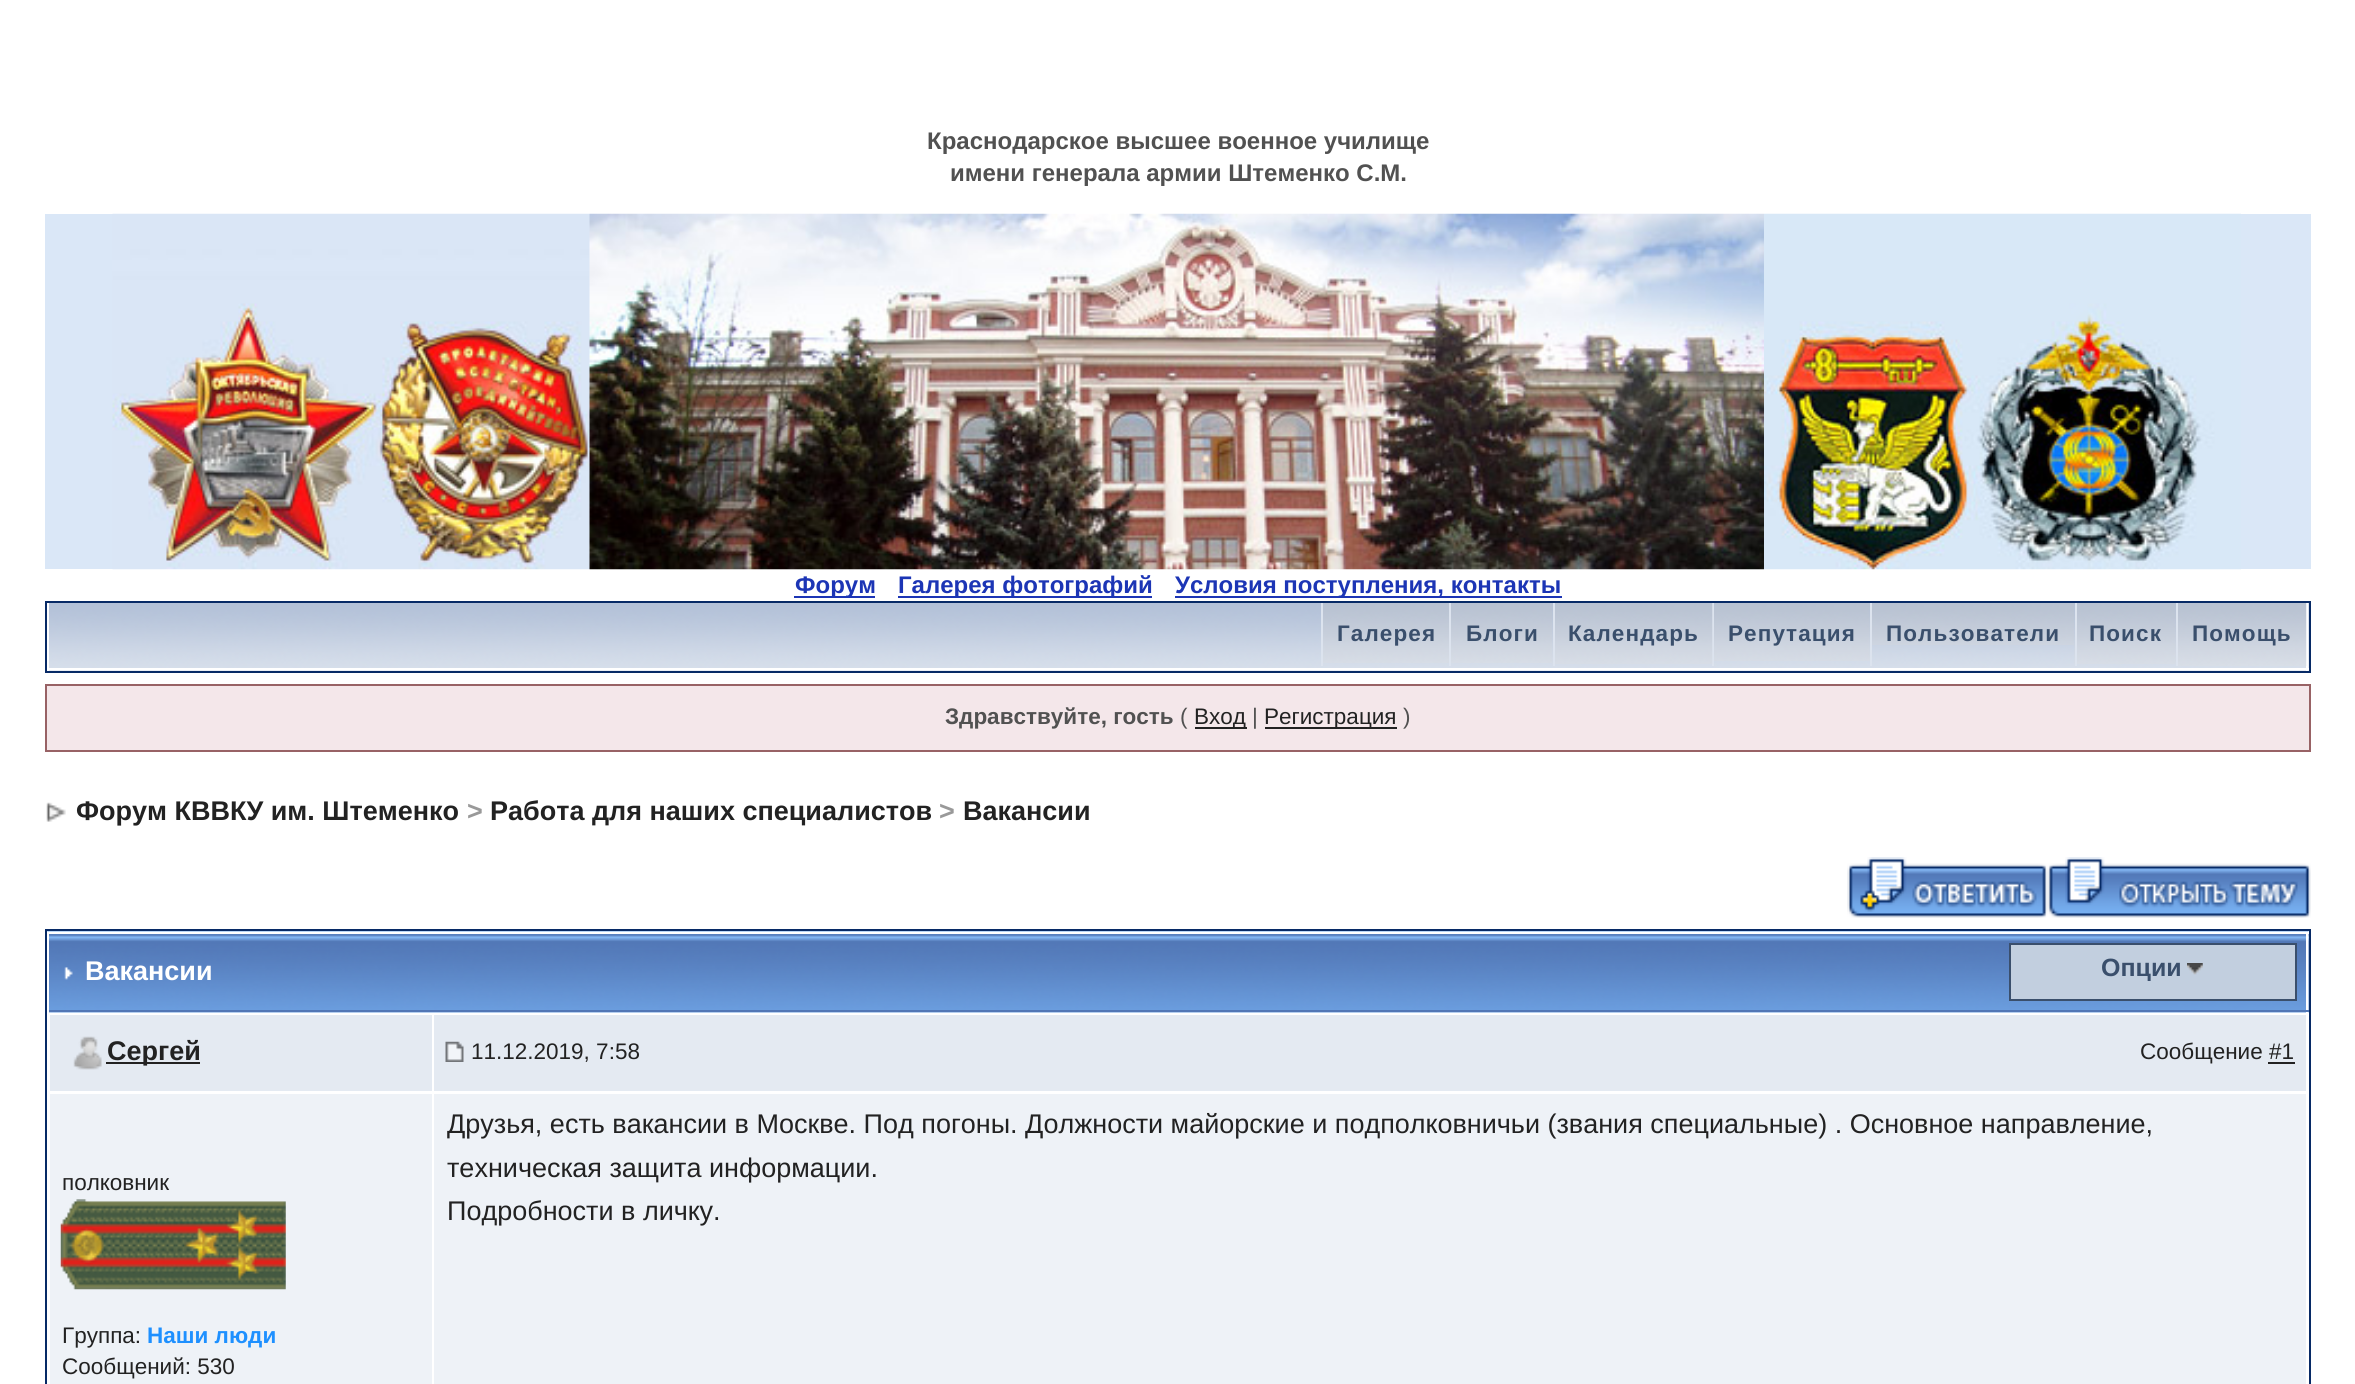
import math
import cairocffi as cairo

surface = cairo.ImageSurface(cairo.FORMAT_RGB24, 2355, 1384)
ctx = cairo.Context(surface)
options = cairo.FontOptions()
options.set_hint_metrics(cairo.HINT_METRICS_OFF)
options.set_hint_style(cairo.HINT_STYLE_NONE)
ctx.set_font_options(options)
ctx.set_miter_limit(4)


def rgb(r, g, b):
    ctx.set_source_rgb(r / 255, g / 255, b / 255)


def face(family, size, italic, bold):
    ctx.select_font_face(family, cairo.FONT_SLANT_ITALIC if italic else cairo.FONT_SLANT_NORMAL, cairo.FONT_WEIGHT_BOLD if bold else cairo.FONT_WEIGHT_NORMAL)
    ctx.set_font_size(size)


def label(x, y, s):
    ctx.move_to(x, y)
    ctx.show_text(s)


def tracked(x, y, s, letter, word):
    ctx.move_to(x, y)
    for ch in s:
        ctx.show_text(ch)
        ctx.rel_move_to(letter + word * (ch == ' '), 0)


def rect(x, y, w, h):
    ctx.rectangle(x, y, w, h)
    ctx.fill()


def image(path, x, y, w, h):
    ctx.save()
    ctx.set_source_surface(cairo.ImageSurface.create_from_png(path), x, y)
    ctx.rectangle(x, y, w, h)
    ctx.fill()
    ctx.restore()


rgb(255, 255, 255)
ctx.paint()
face('Liberation Sans', 24, 0, 1)
rgb(81, 81, 81)
label(927, 149, 'Краснодарское высшее военное училище')
label(950, 181, 'имени генерала армии Штеменко С.М.')
rgb(218, 231, 247)
rect(45, 214, 545, 355)
image('image0.png', 112, 213, 478, 357)
image('image1.png', 589, 213, 1175, 357)
rect(2241, 214, 70, 355)
image('image2.png', 1764, 213, 477, 357)
rgb(28, 53, 181)
rect(794, 596, 81, 2)
label(795, 593, 'Форум')
rect(898, 596, 254, 2)
label(898, 593, 'Галерея фотографий')
rect(1175, 596, 387, 2)
label(1175, 593, 'Условия поступления, контакты')
ctx.rectangle(46, 602, 2264, 70)
rgb(7, 42, 102)
ctx.stroke()
image('image3.png', 49, 603, 2260, 68)
rgb(255, 255, 255)
rect(2306, 603, 2, 68)
rect(47, 668, 2262, 2)
image('image4.png', 1323, 603, 126, 60)
rgb(220, 227, 238)
rect(1321, 603, 2, 63)
face('Liberation Sans', 22.5, 0, 1)
rgb(58, 79, 108)
tracked(1337, 641, 'Галерея', 1.1, 0)
image('image5.png', 1451, 603, 101, 60)
rgb(220, 227, 238)
rect(1449, 603, 2, 63)
rgb(58, 79, 108)
tracked(1466, 641, 'Блоги', 1.1, 0)
rgb(220, 227, 238)
rect(1712, 603, 2, 63)
image('image6.png', 1552, 603, 161, 61)
rect(1553, 603, 2, 63)
rgb(58, 79, 108)
tracked(1568, 641, 'Календарь', 1.1, 0)
image('image7.png', 1714, 603, 156, 58)
tracked(1728, 641, 'Репутация', 1.1, 0)
image('image8.png', 1872, 603, 202, 42)
rgb(220, 227, 238)
rect(1870, 603, 2, 63)
rgb(58, 79, 108)
tracked(1886, 641, 'Пользователи', 1.1, 0)
image('image9.png', 2074, 603, 102, 61)
rgb(220, 227, 238)
rect(2075, 603, 2, 63)
rgb(58, 79, 108)
tracked(2089, 641, 'Поиск', 1.1, 0)
image('image10.png', 2178, 603, 129, 63)
rgb(220, 227, 238)
rect(2176, 603, 2, 63)
rgb(58, 79, 108)
tracked(2192, 641, 'Помощь', 1.1, 0)
rgb(244, 231, 234)
ctx.rectangle(46, 685, 2264, 66)
ctx.fill_preserve()
rgb(152, 98, 101)
ctx.stroke()
rgb(81, 81, 81)
label(945, 724, 'Здравствуйте, гость')
face('Liberation Sans', 22.5, 0, 0)
label(1180, 724, '(')
rgb(34, 34, 34)
rect(1195, 727, 52, 2)
label(1194, 724, 'Вход')
rgb(81, 81, 81)
label(1252, 724, '|')
rgb(34, 34, 34)
rect(1265, 727, 132, 2)
label(1264, 724, 'Регистрация')
rgb(81, 81, 81)
label(1403, 724, ')')
image('image11.png', 46, 802, 20, 20)
face('Liberation Sans', 27, 0, 1)
rgb(34, 34, 34)
label(76, 820, 'Форум КВВКУ им. Штеменко')
rgb(153, 153, 153)
label(467, 820, '>')
rgb(34, 34, 34)
label(490, 820, 'Работа для наших специалистов')
rgb(153, 153, 153)
label(939, 820, '>')
rgb(34, 34, 34)
label(963, 820, 'Вакансии')
image('image12.png', 1847, 857, 201, 61)
image('image13.png', 2047, 857, 264, 61)
ctx.rectangle(46, 930, 2264, 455)
rgb(7, 42, 102)
ctx.stroke()
image('image14.png', 47, 931, 2262, 82)
rgb(255, 255, 255)
rect(47, 932, 2262, 2)
rect(2306, 932, 2, 81)
rgb(81, 118, 181)
rect(47, 1010, 2262, 2)
rgb(255, 255, 255)
rect(47, 932, 2, 81)
image('image15.png', 64, 967, 9, 13)
label(85, 980, 'Вакансии')
rgb(194, 207, 223)
ctx.rectangle(2010, 944, 286, 56)
ctx.fill_preserve()
rgb(58, 79, 108)
ctx.stroke()
face('Liberation Sans', 25, 0, 1)
label(2101, 976, 'Опции')
image('image16.png', 2187, 963, 16, 12)
rgb(228, 234, 242)
rect(50, 1015, 382, 76)
image('image17.png', 73, 1036, 29, 34)
rgb(34, 34, 34)
rect(106, 1062, 94, 2)
face('Liberation Sans', 27, 0, 1)
label(107, 1060, 'Сергей')
rgb(228, 234, 242)
rect(434, 1015, 1872, 76)
image('image18.png', 445, 1041, 19, 21)
face('Liberation Sans', 22.5, 0, 0)
rgb(34, 34, 34)
label(471, 1059, '11.12.2019, 7:58')
label(2140, 1059, 'Сообщение #1')
rect(2268, 1062, 27, 2)
rgb(238, 242, 247)
rect(50, 1094, 382, 290)
rgb(34, 34, 34)
label(62, 1190, 'полковник')
image('image19.png', 60, 1199, 226, 91)
label(62, 1343, 'Группа:')
face('Liberation Sans', 22.5, 0, 1)
rgb(30, 144, 255)
label(147, 1343, 'Наши люди')
face('Liberation Sans', 22.5, 0, 0)
rgb(34, 34, 34)
label(62, 1374, 'Сообщений: 530')
rgb(238, 242, 247)
rect(434, 1094, 1872, 290)
face('Liberation Sans', 27, 0, 0)
rgb(34, 34, 34)
label(447, 1133, 'Друзья, есть вакансии в Москве. Под погоны. Должности майорские и подполковничьи (звания специальные) . Основное направление,')
label(447, 1177, 'техническая защита информации.')
label(447, 1220, 'Подробности в личку.')
surface.write_to_png('render.png')
